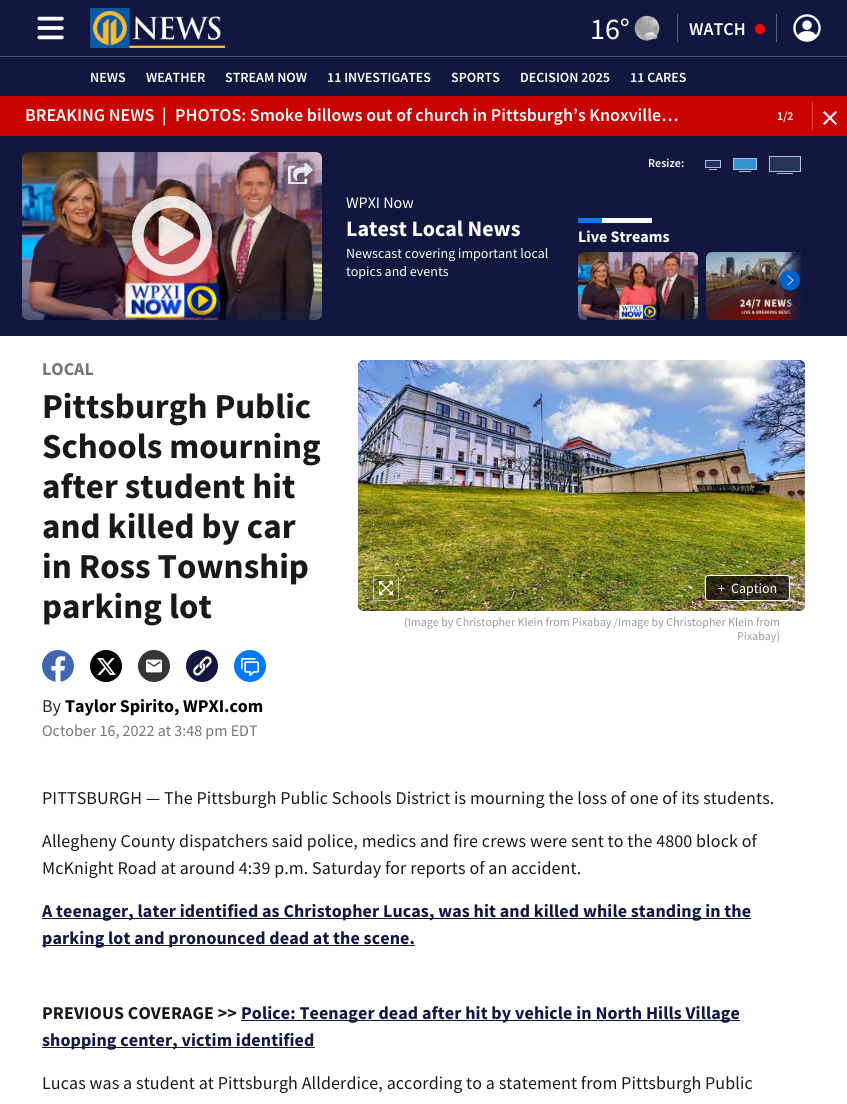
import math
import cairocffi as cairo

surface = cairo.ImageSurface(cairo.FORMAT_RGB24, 847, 1104)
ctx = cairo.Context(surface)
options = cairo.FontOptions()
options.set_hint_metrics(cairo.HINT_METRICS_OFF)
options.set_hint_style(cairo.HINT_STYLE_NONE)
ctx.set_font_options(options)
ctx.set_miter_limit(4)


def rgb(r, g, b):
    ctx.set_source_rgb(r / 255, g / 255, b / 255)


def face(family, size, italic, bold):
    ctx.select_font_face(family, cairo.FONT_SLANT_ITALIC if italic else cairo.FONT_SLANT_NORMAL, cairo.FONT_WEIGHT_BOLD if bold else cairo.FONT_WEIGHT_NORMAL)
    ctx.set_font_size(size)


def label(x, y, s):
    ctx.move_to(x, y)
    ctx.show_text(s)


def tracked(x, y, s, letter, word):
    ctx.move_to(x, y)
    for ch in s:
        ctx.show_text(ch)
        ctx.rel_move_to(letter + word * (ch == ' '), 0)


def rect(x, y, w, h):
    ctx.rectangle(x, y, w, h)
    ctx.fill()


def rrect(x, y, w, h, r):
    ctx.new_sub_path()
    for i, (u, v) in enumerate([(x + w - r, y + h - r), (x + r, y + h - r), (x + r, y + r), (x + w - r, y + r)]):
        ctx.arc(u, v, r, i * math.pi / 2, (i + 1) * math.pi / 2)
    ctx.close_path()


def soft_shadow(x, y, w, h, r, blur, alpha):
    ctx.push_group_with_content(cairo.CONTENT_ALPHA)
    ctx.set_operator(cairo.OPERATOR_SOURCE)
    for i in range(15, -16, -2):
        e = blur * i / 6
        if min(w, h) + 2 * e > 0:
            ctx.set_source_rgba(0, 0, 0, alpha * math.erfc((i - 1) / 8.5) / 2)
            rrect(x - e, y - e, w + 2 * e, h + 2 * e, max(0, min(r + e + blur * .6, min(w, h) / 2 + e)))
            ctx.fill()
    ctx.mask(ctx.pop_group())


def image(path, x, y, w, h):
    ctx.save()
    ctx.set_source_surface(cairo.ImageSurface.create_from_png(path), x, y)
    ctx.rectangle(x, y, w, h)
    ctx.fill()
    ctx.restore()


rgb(255, 255, 255)
ctx.paint()
rgb(17, 23, 62)
rect(0, 0, 847, 56)
image('image0.png', 37, 16, 27, 24)
image('image1.png', 90, 8, 135, 40)
face('Source Sans Pro', 30, 0, 0)
rgb(255, 255, 255)
label(590, 39, '16°')
image('image2.png', 634, 15, 26, 26)
rgb(88, 93, 120)
rect(677, 14, 1, 28)
face('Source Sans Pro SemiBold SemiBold', 18, 0, 0)
rgb(255, 255, 255)
label(689, 35, 'WATCH')
rgb(255, 0, 0)
ctx.new_path()
ctx.arc(760, 29, 5, 0, 2 * math.pi)
ctx.fill()
rgb(88, 93, 120)
rect(776, 14, 1, 28)
image('image3.png', 793, 14, 28, 28)
rgb(17, 23, 62)
rect(0, 57, 847, 39)
rgb(75, 93, 120)
rect(0, 56, 847, 1)
face('Source Sans Pro SemiBold SemiBold', 14, 0, 0)
rgb(255, 255, 255)
label(90, 82, 'NEWS')
label(146, 82, 'WEATHER')
label(225, 82, 'STREAM NOW')
label(327, 82, '11 INVESTIGATES')
label(451, 82, 'SPORTS')
label(520, 82, 'DECISION 2025')
label(630, 82, '11 CARES')
rgb(202, 1, 1)
rect(0, 96, 847, 40)
face('Source Sans Pro SemiBold SemiBold', 18, 0, 0)
rgb(255, 255, 255)
label(25, 121, 'BREAKING NEWS')
label(162, 121, '|')
label(175, 121, 'PHOTOS: Smoke billows out of church in Pittsburgh’s Knoxville…')
face('Source Sans Pro SemiBold SemiBold', 12, 0, 0)
label(777, 120, '1/2')
rgb(218, 77, 77)
rect(812, 102, 1, 28)
image('image4.png', 823, 111, 14, 14)
rgb(17, 23, 62)
rect(0, 136, 847, 200)
image('image6.png', 22, 152, 300, 168)
ctx.save()
ctx.rectangle(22, 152, 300, 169)
ctx.clip()
ctx.set_fill_rule(cairo.FILL_RULE_EVEN_ODD)
ctx.new_path()
ctx.move_to(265, 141)
ctx.line_to(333, 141)
ctx.line_to(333, 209)
ctx.line_to(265, 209)
ctx.close_path()
ctx.move_to(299, 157)
ctx.curve_to(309, 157, 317, 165, 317, 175)
ctx.curve_to(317, 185, 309, 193, 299, 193)
ctx.curve_to(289, 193, 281, 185, 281, 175)
ctx.curve_to(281, 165, 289, 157, 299, 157)
ctx.close_path()
ctx.clip()
rgb(0, 0, 0)
soft_shadow(277, 153, 44, 44, 22, 3.5, 0.1)
ctx.restore()
ctx.set_source_rgba(0, 0, 0, 0.1)
ctx.arc(299, 175, 18, 0, 2 * math.pi)
ctx.fill()
image('image5.png', 288, 163, 25, 21)
ctx.save()
ctx.set_fill_rule(cairo.FILL_RULE_EVEN_ODD)
ctx.new_path()
ctx.move_to(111, 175)
ctx.line_to(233, 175)
ctx.line_to(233, 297)
ctx.line_to(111, 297)
ctx.close_path()
ctx.move_to(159, 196)
ctx.line_to(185, 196)
ctx.curve_to(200, 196, 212, 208, 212, 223)
ctx.line_to(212, 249)
ctx.curve_to(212, 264, 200, 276, 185, 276)
ctx.line_to(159, 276)
ctx.curve_to(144, 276, 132, 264, 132, 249)
ctx.line_to(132, 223)
ctx.curve_to(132, 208, 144, 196, 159, 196)
ctx.close_path()
ctx.clip()
rgb(0, 0, 0)
soft_shadow(127, 191, 90, 90, 32, 5, 0.21)
ctx.restore()
ctx.set_source_rgba(0, 0, 0, 0.21)
rrect(132, 196, 80, 80, 27)
ctx.fill()
image('image7.png', 132, 196, 80, 80)
rgb(255, 255, 255)
label(648, 167, 'Resize:')
image('image8.png', 705, 160, 16, 10)
image('image9.png', 733, 158, 24, 14)
image('image10.png', 769, 156, 32, 18)
face('Source Sans Pro', 16, 0, 0)
label(346, 208, 'WPXI Now')
face('Source Sans Pro', 22, 0, 1)
label(346, 236, 'Latest Local News')
face('Source Sans Pro', 14, 0, 0)
label(346, 258, 'Newscast covering important local')
label(346, 276, 'topics and events')
rect(602, 218, 50, 5)
rgb(0, 121, 255)
rect(578, 218, 24, 5)
face('Source Sans Pro', 16, 0, 1)
rgb(255, 255, 255)
label(578, 242, 'Live Streams')
image('image11.png', 578, 252, 120, 68)
image('image12.png', 706, 252, 96, 68)
gradient = cairo.LinearGradient(783, 280, 807, 280)
gradient.add_color_stop_rgba(0, 0.067, 0.09, 0.243, 0)
gradient.add_color_stop_rgba(0.8, 0.067, 0.09, 0.243, 1)
ctx.set_source(gradient)
rect(783, 252, 19, 68)
image('image13.png', 778, 270, 24, 24)
face('Source Sans Pro', 18, 0, 1)
rgb(117, 117, 117)
label(42, 375, 'LOCAL')
face('Source Sans Pro', 35, 0, 1)
rgb(25, 25, 25)
label(42, 418, 'Pittsburgh Public')
label(42, 458, 'Schools mourning')
label(42, 498, 'after student hit')
label(42, 538, 'and killed by car')
label(42, 578, 'in Ross Township')
label(42, 618, 'parking lot')
image('image14.png', 42, 650, 32, 32)
image('image15.png', 90, 650, 32, 32)
image('image16.png', 138, 650, 32, 32)
image('image17.png', 186, 650, 32, 32)
rgb(0, 121, 255)
ctx.arc(250, 666, 16, 0, 2 * math.pi)
ctx.fill()
image('image18.png', 241, 658, 18, 18)
face('Source Sans Pro', 18, 0, 0)
rgb(35, 43, 57)
label(42, 712, 'By')
face('Source Sans Pro', 18, 0, 1)
rgb(0, 0, 0)
label(65, 712, 'Taylor Spirito, WPXI.com')
face('Source Sans Pro', 16, 0, 0)
rgb(117, 117, 117)
label(42, 736, 'October 16, 2022 at 3:48 pm EDT')
rgb(17, 23, 62)
rrect(358, 360, 447, 251, 6)
ctx.fill()
image('image19.png', 358, 360, 447, 251)
rrect(373.5, 575.5, 25, 25, 2.5)
ctx.set_source_rgba(1, 1, 1, 0.5)
ctx.set_line_width(1)
ctx.stroke()
image('image20.png', 379, 581, 14, 14)
ctx.set_source_rgba(0, 0, 0, 0.65)
rrect(705.5, 575.5, 84, 25, 2.5)
ctx.fill_preserve()
rgb(255, 255, 255)
ctx.stroke()
face('Source Sans Pro', 14, 0, 0)
label(718, 593, '+')
label(731, 593, 'Caption')
face('Source Sans Pro', 12, 0, 0)
rgb(154, 154, 154)
label(404, 626, '(Image by Christopher Klein from Pixabay /Image by Christopher Klein from')
label(737, 640, 'Pixabay)')
face('Source Sans Pro', 18, 0, 0)
rgb(25, 25, 25)
tracked(42, 804, 'PITTSBURGH — The Pittsburgh Public Schools District is mourning the loss of one of its students.', 0.1, 0)
tracked(42, 847, 'Allegheny County dispatchers said police, medics and fire crews were sent to the 4800 block of', 0.1, 0)
tracked(42, 874, 'McKnight Road at around 4:39 p.m. Saturday for reports of an accident.', 0.1, 0)
rgb(17, 23, 62)
rect(42, 918, 709, 1)
face('Source Sans Pro', 18, 0, 1)
tracked(42, 917, 'A teenager, later identified as Christopher Lucas, was hit and killed while standing in the', 0.1, 0)
rect(42, 945, 373, 1)
tracked(42, 944, 'parking lot and pronounced dead at the scene.', 0.1, 0)
rgb(25, 25, 25)
tracked(42, 1019, 'PREVIOUS COVERAGE >>', 0.1, 0)
rgb(17, 23, 62)
rect(241, 1020, 499, 1)
tracked(241, 1019, 'Police: Teenager dead after hit by vehicle in North Hills Village', 0.1, 0)
rect(42, 1047, 273, 1)
tracked(42, 1046, 'shopping center, victim identified', 0.1, 0)
face('Source Sans Pro', 18, 0, 0)
rgb(25, 25, 25)
tracked(42, 1089, 'Lucas was a student at Pittsburgh Allderdice, according to a statement from Pittsburgh Public', 0.1, 0)
surface.write_to_png('render.png')
